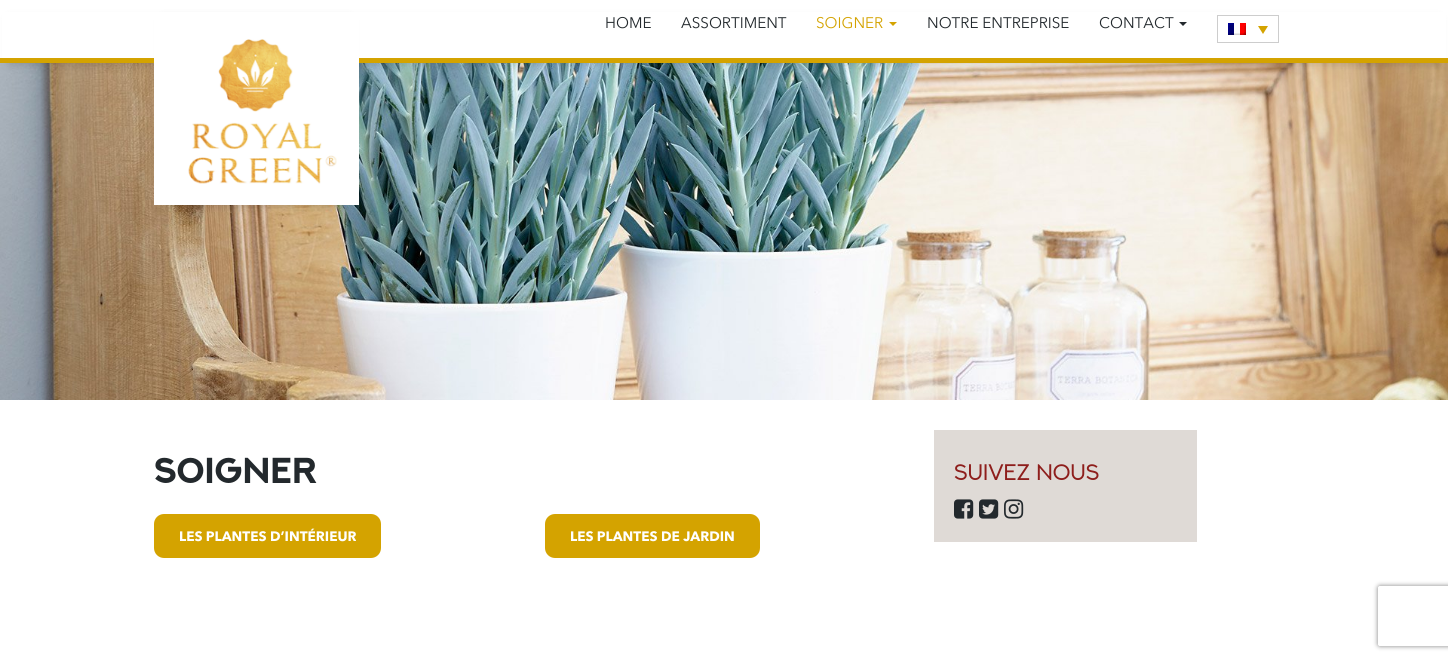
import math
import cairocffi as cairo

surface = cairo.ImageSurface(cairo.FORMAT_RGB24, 1448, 660)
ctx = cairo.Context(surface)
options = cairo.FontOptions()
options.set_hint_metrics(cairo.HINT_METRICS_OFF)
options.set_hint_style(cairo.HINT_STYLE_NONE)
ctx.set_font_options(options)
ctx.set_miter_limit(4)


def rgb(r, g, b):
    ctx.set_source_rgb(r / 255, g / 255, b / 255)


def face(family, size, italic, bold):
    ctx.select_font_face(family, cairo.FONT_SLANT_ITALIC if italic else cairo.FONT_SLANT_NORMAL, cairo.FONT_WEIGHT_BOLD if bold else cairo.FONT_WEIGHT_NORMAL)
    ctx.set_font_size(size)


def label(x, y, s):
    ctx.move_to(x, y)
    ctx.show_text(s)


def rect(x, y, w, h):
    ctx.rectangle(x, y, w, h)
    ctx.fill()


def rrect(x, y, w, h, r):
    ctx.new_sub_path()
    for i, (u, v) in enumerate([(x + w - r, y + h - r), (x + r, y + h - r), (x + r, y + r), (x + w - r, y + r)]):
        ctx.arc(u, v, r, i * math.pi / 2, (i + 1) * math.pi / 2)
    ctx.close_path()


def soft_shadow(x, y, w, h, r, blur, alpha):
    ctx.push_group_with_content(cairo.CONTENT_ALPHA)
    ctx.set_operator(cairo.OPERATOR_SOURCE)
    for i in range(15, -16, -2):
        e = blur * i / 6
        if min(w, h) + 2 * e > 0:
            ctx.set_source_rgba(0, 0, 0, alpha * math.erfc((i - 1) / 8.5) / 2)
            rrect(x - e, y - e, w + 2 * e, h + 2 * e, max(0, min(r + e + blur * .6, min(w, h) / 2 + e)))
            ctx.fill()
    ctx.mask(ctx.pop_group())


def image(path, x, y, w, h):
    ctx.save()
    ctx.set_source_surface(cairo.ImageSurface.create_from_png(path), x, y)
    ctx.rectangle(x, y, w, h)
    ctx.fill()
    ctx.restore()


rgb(255, 255, 255)
ctx.paint()
image('image2.png', 0, 63, 1448, 337)
rgb(0, 0, 0)
soft_shadow(10, 20, 1428, 43, 0, 5, 0.2)
rgb(255, 255, 255)
rect(2, 12, 1444, 46)
rgb(212, 163, 0)
rect(0, 58, 1448, 5)
rgb(0, 0, 0)
soft_shadow(164, 20, 185, 185, 0, 5, 0.2)
rgb(255, 255, 255)
rect(154, 12, 205, 193)
image('image0.png', 188, 39, 149, 145)
face('Avenir Next', 15.25, 0, 0)
rgb(35, 41, 45)
label(605, 28, 'HOME')
label(681, 28, 'ASSORTIMENT')
rgb(212, 163, 0)
label(816, 28, 'SOIGNER')
ctx.new_path()
ctx.move_to(889, 22)
ctx.line_to(897, 22)
ctx.line_to(893, 26)
ctx.close_path()
ctx.fill()
rgb(35, 41, 45)
label(927, 28, 'NOTRE ENTREPRISE')
label(1099, 28, 'CONTACT')
ctx.new_path()
ctx.move_to(1179, 22)
ctx.line_to(1187, 22)
ctx.line_to(1183, 26)
ctx.close_path()
ctx.fill()
ctx.rectangle(1217.5, 15.5, 61, 27)
rgb(205, 205, 205)
ctx.set_line_width(1)
ctx.stroke()
image('image1.png', 1228, 23, 18, 12)
rgb(212, 163, 0)
ctx.new_path()
ctx.move_to(1258, 26)
ctx.line_to(1268, 26)
ctx.line_to(1263, 34)
ctx.close_path()
ctx.fill()
face('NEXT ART', 36, 0, 1)
rgb(35, 41, 45)
label(154, 483, 'SOIGNER')
rgb(212, 163, 0)
rrect(154, 514, 227, 44, 10)
ctx.fill()
face('Avenir Next', 13.6, 0, 1)
rgb(255, 255, 255)
label(179, 541, 'LES PLANTES D’INTÉRIEUR')
rgb(212, 163, 0)
rrect(545, 514, 215, 44, 10)
ctx.fill()
rgb(255, 255, 255)
label(570, 541, 'LES PLANTES DE JARDIN')
rgb(223, 218, 214)
rect(934, 430, 263, 112)
face('NEXT ART', 22.5, 0, 0)
rgb(142, 30, 28)
label(954, 480, 'SUIVEZ NOUS')
image('image3.png', 954, 499, 20, 20)
image('image4.png', 979, 499, 20, 20)
image('image5.png', 1004, 499, 20, 20)
ctx.save()
ctx.set_fill_rule(cairo.FILL_RULE_EVEN_ODD)
ctx.new_path()
ctx.move_to(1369, 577)
ctx.line_to(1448, 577)
ctx.line_to(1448, 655)
ctx.line_to(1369, 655)
ctx.close_path()
ctx.move_to(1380, 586)
ctx.line_to(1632, 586)
ctx.curve_to(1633, 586, 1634, 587, 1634, 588)
ctx.line_to(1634, 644)
ctx.curve_to(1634, 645, 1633, 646, 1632, 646)
ctx.line_to(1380, 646)
ctx.curve_to(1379, 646, 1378, 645, 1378, 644)
ctx.line_to(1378, 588)
ctx.curve_to(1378, 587, 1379, 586, 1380, 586)
ctx.close_path()
ctx.clip()
rgb(128, 128, 128)
soft_shadow(1378, 586, 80, 60, 2, 2.5, 1)
ctx.restore()
surface.write_to_png('render.png')
